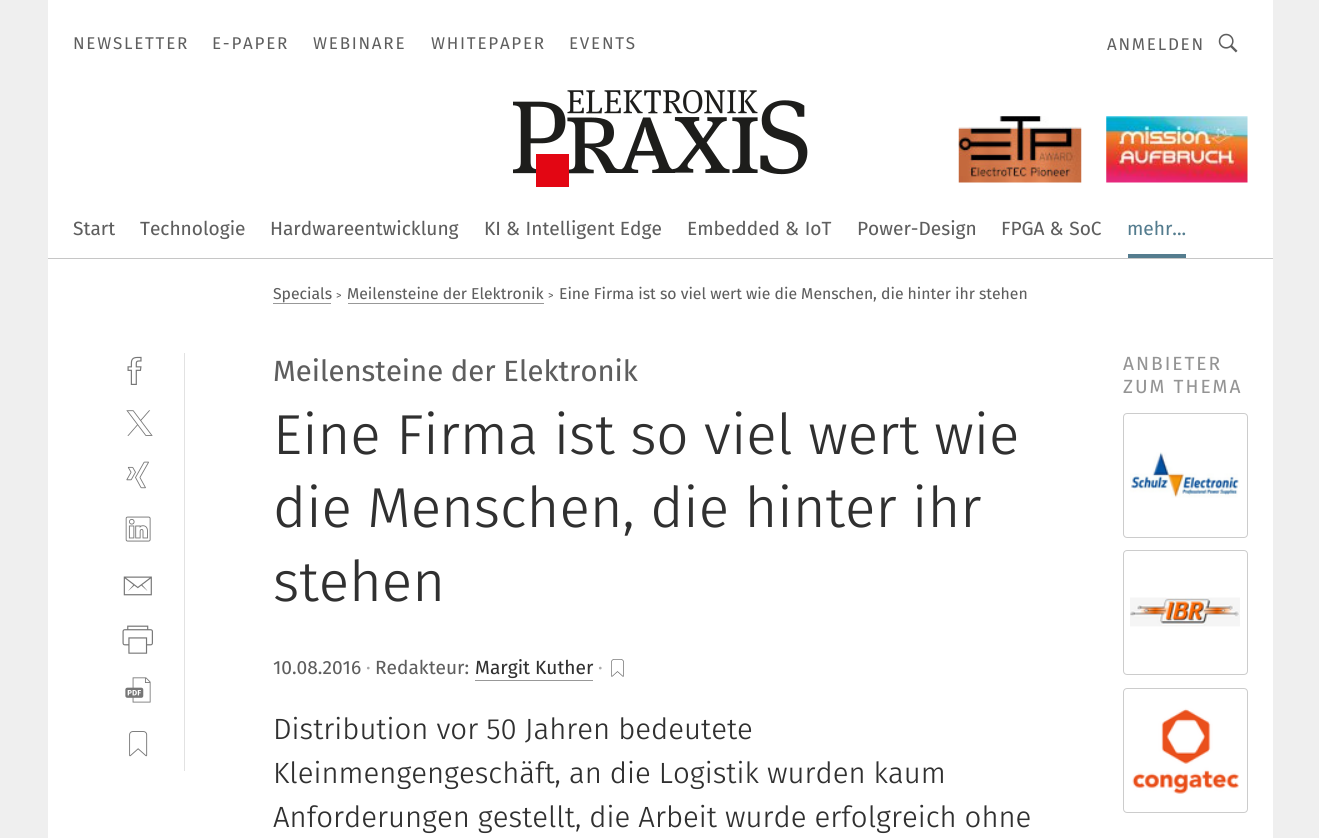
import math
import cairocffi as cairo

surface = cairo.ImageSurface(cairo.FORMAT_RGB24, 1319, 838)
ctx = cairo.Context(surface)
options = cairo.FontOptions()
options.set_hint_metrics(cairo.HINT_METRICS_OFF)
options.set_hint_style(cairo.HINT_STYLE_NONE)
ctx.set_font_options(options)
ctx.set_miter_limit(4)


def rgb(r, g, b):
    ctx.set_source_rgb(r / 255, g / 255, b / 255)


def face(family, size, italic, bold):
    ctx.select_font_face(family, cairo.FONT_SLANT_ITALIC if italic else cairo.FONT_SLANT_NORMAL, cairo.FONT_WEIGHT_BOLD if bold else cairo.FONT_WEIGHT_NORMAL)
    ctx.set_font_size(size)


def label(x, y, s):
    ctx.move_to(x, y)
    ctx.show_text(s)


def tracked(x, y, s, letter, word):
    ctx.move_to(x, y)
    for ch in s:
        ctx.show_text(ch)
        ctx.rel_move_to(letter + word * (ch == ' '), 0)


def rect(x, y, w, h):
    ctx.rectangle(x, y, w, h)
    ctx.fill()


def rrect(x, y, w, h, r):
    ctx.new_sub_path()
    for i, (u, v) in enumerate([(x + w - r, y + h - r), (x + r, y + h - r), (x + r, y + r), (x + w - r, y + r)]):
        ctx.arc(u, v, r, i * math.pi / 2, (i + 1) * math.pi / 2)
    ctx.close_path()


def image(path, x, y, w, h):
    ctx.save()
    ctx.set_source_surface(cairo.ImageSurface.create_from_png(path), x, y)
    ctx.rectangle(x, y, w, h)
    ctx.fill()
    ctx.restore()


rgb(239, 239, 239)
ctx.paint()
rgb(255, 255, 255)
rect(48, 0, 1225, 838)
rgb(198, 198, 198)
rect(48, 258, 1225, 1)
face('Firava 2', 17, 0, 0)
rgb(94, 94, 94)
tracked(73, 49, 'NEWSLETTER', 1.75, 0)
tracked(212, 49, 'E-PAPER', 1.75, 0)
tracked(313, 49, 'WEBINARE', 1.75, 0)
tracked(431, 49, 'WHITEPAPER', 1.75, 0)
tracked(569, 49, 'EVENTS', 1.75, 0)
tracked(1107, 50, 'ANMELDEN', 1.75, 0)
image('image0.png', 1218, 33, 20, 20)
image('image1.png', 513, 90, 295, 97)
image('image2.png', 958, 116, 124, 67)
image('image3.png', 1106, 116, 142, 67)
face('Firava', 19.1, 0, 0)
label(73, 235, 'Start')
label(140, 235, 'Technologie')
label(270, 235, 'Hardwareentwicklung')
label(484, 235, 'KI & Intelligent Edge')
label(687, 235, 'Embedded & IoT')
label(857, 235, 'Power-Design')
label(1001, 235, 'FPGA & SoC')
rgb(84, 124, 142)
rect(1128, 254, 58, 4)
label(1127, 235, 'mehr...')
face('Firava', 15.75, 0, 0)
rgb(94, 94, 94)
label(273, 299, 'Specials')
rgb(152, 152, 152)
rect(273, 303, 58, 1)
face('Firava', 11, 0, 0)
rgb(94, 94, 94)
label(336, 299, '>')
face('Firava', 15.75, 0, 0)
label(347, 299, 'Meilensteine der Elektronik')
rgb(152, 152, 152)
rect(348, 303, 196, 1)
face('Firava', 11, 0, 0)
rgb(94, 94, 94)
label(548, 299, '>')
face('Firava', 15.75, 0, 0)
label(559, 299, 'Eine Firma ist so viel wert wie die Menschen, die hinter ihr stehen')
rgb(226, 226, 226)
rect(184, 353, 1, 418)
image('image4.png', 127, 356, 15, 29)
image('image5.png', 126, 410, 27, 26)
image('image6.png', 126, 461, 23, 28)
image('image7.png', 125, 516, 26, 26)
image('image8.png', 123, 576, 29, 20)
image('image9.png', 122, 625, 31, 29)
image('image10.png', 125, 677, 26, 26)
image('image11.png', 129, 731, 19, 26)
face('Firava', 29.25, 0, 0)
rgb(94, 94, 94)
label(273, 381, 'Meilensteine der Elektronik')
face('Firava Light', 56.25, 0, 0)
rgb(48, 48, 48)
label(273, 454, 'Eine Firma ist so viel wert wie')
label(273, 527, 'die Menschen, die hinter ihr')
label(273, 601, 'stehen')
face('Firava', 19.1, 0, 0)
rgb(148, 148, 148)
tracked(1123, 370, 'ANBIETER', 2, 0)
tracked(1123, 393, 'ZUM THEMA', 2, 0)
rrect(1123.5, 413.5, 124, 124, 3.5)
rgb(204, 204, 204)
ctx.set_line_width(1)
ctx.stroke()
image('image12.png', 1130, 452, 110, 46)
rrect(1123.5, 550.5, 124, 124, 3.5)
ctx.stroke()
image('image13.png', 1130, 597, 110, 30)
rrect(1123.5, 688.5, 124, 124, 3.5)
ctx.stroke()
image('image14.png', 1132, 708, 107, 86)
rgb(94, 94, 94)
label(273, 674, '10.08.2016')
rgb(171, 171, 171)
label(366, 674, '·')
rgb(94, 94, 94)
label(375, 674, 'Redakteur:')
rgb(48, 48, 48)
label(475, 674, 'Margit Kuther')
rgb(152, 152, 152)
rect(475, 680, 118, 1)
rgb(171, 171, 171)
label(598, 674, '·')
image('image15.png', 611, 659, 13, 18)
face('Firava Light', 29.25, 0, 0)
rgb(48, 48, 48)
label(273, 739, 'Distribution vor 50 Jahren bedeutete')
label(273, 783, 'Kleinmengengeschäft, an die Logistik wurden kaum')
label(273, 827, 'Anforderungen gestellt, die Arbeit wurde erfolgreich ohne')
surface.write_to_png('render.png')
